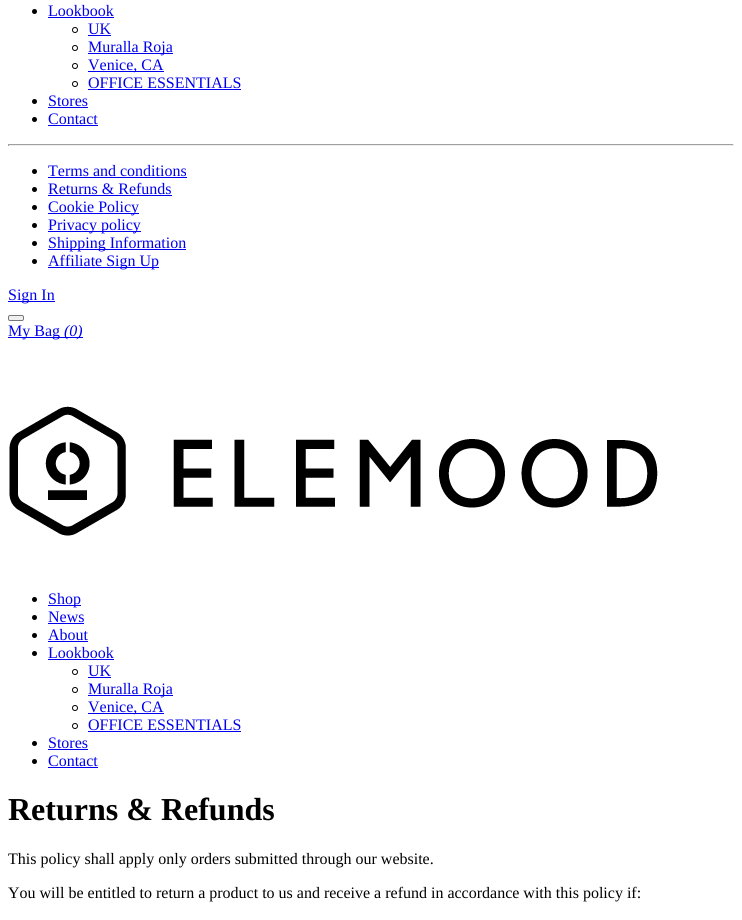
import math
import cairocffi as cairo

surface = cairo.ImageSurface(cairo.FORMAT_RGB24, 742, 920)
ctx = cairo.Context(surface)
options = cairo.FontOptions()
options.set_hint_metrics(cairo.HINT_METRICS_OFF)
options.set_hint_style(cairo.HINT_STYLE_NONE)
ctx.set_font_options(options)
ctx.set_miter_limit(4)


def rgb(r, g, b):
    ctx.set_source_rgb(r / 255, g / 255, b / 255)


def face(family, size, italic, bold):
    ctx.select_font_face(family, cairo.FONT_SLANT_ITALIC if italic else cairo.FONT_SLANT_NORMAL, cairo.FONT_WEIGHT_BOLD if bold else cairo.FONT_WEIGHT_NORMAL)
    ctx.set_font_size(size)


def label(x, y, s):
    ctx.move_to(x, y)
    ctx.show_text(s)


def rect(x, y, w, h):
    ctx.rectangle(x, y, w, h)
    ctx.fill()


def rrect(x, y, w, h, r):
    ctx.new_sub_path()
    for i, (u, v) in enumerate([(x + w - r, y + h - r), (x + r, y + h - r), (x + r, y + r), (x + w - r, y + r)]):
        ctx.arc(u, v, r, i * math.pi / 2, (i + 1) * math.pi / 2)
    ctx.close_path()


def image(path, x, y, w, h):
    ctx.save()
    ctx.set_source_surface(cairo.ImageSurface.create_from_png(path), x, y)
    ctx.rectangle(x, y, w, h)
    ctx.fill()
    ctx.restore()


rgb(255, 255, 255)
ctx.paint()
rgb(0, 0, 0)
ctx.arc(34.5, 11.5, 2.5, 0, 2 * math.pi)
ctx.fill()
face('Liberation Serif', 16, 0, 0)
rgb(0, 0, 238)
label(48, 16, 'Lookbook')
rect(48, 17, 66, 1)
ctx.new_path()
ctx.arc(75, 30, 2.5, 0, 2 * math.pi)
rgb(0, 0, 0)
ctx.set_line_width(1)
ctx.stroke()
rgb(0, 0, 238)
label(88, 34, 'UK')
rect(88, 35, 23, 1)
ctx.new_path()
ctx.arc(75, 48, 2.5, 0, 2 * math.pi)
rgb(0, 0, 0)
ctx.stroke()
rgb(0, 0, 238)
rect(88, 53, 85, 1)
label(88, 52, 'Muralla Roja')
ctx.new_path()
ctx.arc(75, 66, 2.5, 0, 2 * math.pi)
rgb(0, 0, 0)
ctx.stroke()
rgb(0, 0, 238)
rect(88, 71, 76, 1)
label(88, 70, 'Venice, CA')
ctx.new_path()
ctx.arc(75, 84, 2.5, 0, 2 * math.pi)
rgb(0, 0, 0)
ctx.stroke()
rgb(0, 0, 238)
label(88, 88, 'OFFICE ESSENTIALS')
rect(88, 89, 153, 1)
rgb(0, 0, 0)
ctx.new_path()
ctx.arc(34.5, 101.5, 2.5, 0, 2 * math.pi)
ctx.fill()
rgb(0, 0, 238)
label(48, 106, 'Stores')
rect(48, 107, 40, 1)
rgb(0, 0, 0)
ctx.new_path()
ctx.arc(34.5, 119.5, 2.5, 0, 2 * math.pi)
ctx.fill()
rgb(0, 0, 238)
label(48, 124, 'Contact')
rect(48, 125, 50, 1)
rgb(159, 159, 159)
rect(8, 144, 726, 1)
rgb(238, 238, 238)
rect(733, 144, 1, 2)
rect(8, 145, 726, 1)
rgb(159, 159, 159)
rect(8, 144, 1, 2)
rgb(0, 0, 0)
ctx.new_path()
ctx.arc(34.5, 171.5, 2.5, 0, 2 * math.pi)
ctx.fill()
rgb(0, 0, 238)
label(48, 176, 'Terms and conditions')
rect(48, 177, 139, 1)
rgb(0, 0, 0)
ctx.new_path()
ctx.arc(34.5, 189.5, 2.5, 0, 2 * math.pi)
ctx.fill()
rgb(0, 0, 238)
label(48, 194, 'Returns & Refunds')
rect(48, 195, 124, 1)
rgb(0, 0, 0)
ctx.new_path()
ctx.arc(34.5, 207.5, 2.5, 0, 2 * math.pi)
ctx.fill()
rgb(0, 0, 238)
rect(48, 213, 91, 1)
label(48, 212, 'Cookie Policy')
rgb(0, 0, 0)
ctx.new_path()
ctx.arc(34.5, 225.5, 2.5, 0, 2 * math.pi)
ctx.fill()
rgb(0, 0, 238)
rect(48, 231, 93, 1)
label(48, 230, 'Privacy policy')
rgb(0, 0, 0)
ctx.new_path()
ctx.arc(34.5, 243.5, 2.5, 0, 2 * math.pi)
ctx.fill()
rgb(0, 0, 238)
rect(48, 249, 138, 1)
label(48, 248, 'Shipping Information')
rgb(0, 0, 0)
ctx.new_path()
ctx.arc(34.5, 261.5, 2.5, 0, 2 * math.pi)
ctx.fill()
rgb(0, 0, 238)
rect(48, 267, 111, 1)
label(48, 266, 'Affiliate Sign Up')
rect(8, 301, 47, 1)
label(8, 300, 'Sign In')
rgb(239, 239, 239)
rrect(8.5, 315.5, 15, 5, 1.5)
ctx.fill_preserve()
rgb(118, 118, 118)
ctx.stroke()
rgb(0, 0, 238)
rect(8, 337, 75, 1)
label(8, 336, 'My Bag')
face('Liberation Serif', 16, 1, 0)
label(64, 336, '(0)')
image('image0.png', 9, 406, 649, 130)
rgb(0, 0, 0)
ctx.arc(34.5, 599.5, 2.5, 0, 2 * math.pi)
ctx.fill()
rgb(0, 0, 238)
rect(48, 605, 33, 1)
face('Liberation Serif', 16, 0, 0)
label(48, 604, 'Shop')
rgb(0, 0, 0)
ctx.new_path()
ctx.arc(34.5, 617.5, 2.5, 0, 2 * math.pi)
ctx.fill()
rgb(0, 0, 238)
label(48, 622, 'News')
rect(48, 623, 36, 1)
rgb(0, 0, 0)
ctx.new_path()
ctx.arc(34.5, 635.5, 2.5, 0, 2 * math.pi)
ctx.fill()
rgb(0, 0, 238)
label(48, 640, 'About')
rect(48, 641, 40, 1)
rgb(0, 0, 0)
ctx.new_path()
ctx.arc(34.5, 653.5, 2.5, 0, 2 * math.pi)
ctx.fill()
rgb(0, 0, 238)
label(48, 658, 'Lookbook')
rect(48, 659, 66, 1)
ctx.new_path()
ctx.arc(75, 672, 2.5, 0, 2 * math.pi)
rgb(0, 0, 0)
ctx.stroke()
rgb(0, 0, 238)
label(88, 676, 'UK')
rect(88, 677, 23, 1)
ctx.new_path()
ctx.arc(75, 690, 2.5, 0, 2 * math.pi)
rgb(0, 0, 0)
ctx.stroke()
rgb(0, 0, 238)
rect(88, 695, 85, 1)
label(88, 694, 'Muralla Roja')
ctx.new_path()
ctx.arc(75, 708, 2.5, 0, 2 * math.pi)
rgb(0, 0, 0)
ctx.stroke()
rgb(0, 0, 238)
rect(88, 713, 76, 1)
label(88, 712, 'Venice, CA')
ctx.new_path()
ctx.arc(75, 726, 2.5, 0, 2 * math.pi)
rgb(0, 0, 0)
ctx.stroke()
rgb(0, 0, 238)
label(88, 730, 'OFFICE ESSENTIALS')
rect(88, 731, 153, 1)
rgb(0, 0, 0)
ctx.new_path()
ctx.arc(34.5, 743.5, 2.5, 0, 2 * math.pi)
ctx.fill()
rgb(0, 0, 238)
label(48, 748, 'Stores')
rect(48, 749, 40, 1)
rgb(0, 0, 0)
ctx.new_path()
ctx.arc(34.5, 761.5, 2.5, 0, 2 * math.pi)
ctx.fill()
rgb(0, 0, 238)
label(48, 766, 'Contact')
rect(48, 767, 50, 1)
face('Liberation Serif', 32, 0, 1)
rgb(0, 0, 0)
label(8, 820, 'Returns & Refunds')
face('Liberation Serif', 16, 0, 0)
label(8, 864, 'This policy shall apply only orders submitted through our website.')
label(8, 898, 'You will be entitled to return a product to us and receive a refund in accordance with this policy if:')
surface.write_to_png('render.png')
